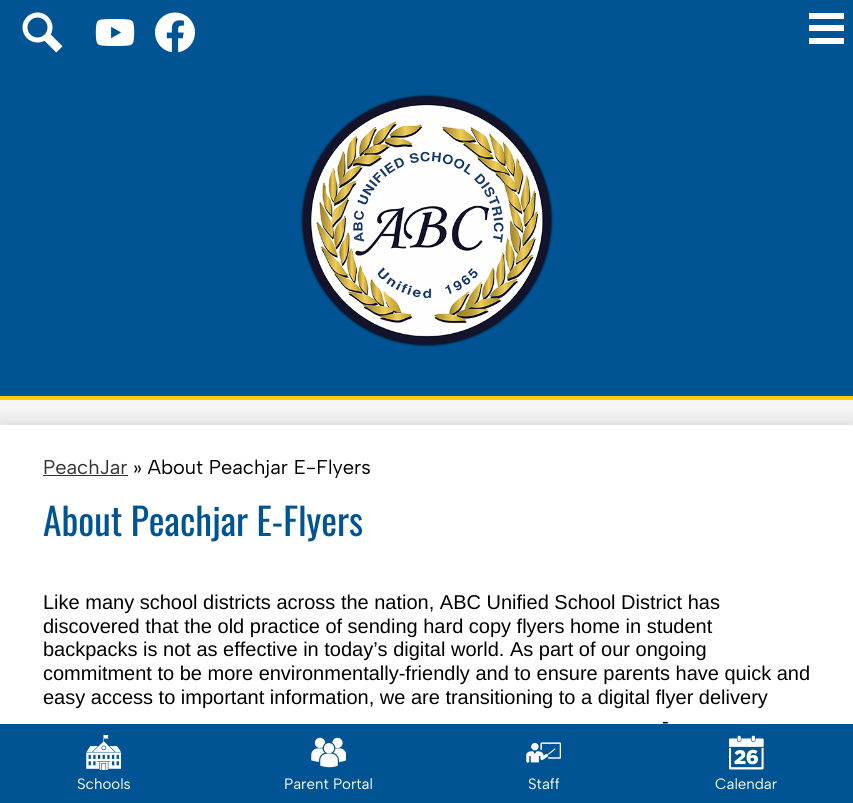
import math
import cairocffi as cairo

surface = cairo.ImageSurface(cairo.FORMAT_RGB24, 853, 803)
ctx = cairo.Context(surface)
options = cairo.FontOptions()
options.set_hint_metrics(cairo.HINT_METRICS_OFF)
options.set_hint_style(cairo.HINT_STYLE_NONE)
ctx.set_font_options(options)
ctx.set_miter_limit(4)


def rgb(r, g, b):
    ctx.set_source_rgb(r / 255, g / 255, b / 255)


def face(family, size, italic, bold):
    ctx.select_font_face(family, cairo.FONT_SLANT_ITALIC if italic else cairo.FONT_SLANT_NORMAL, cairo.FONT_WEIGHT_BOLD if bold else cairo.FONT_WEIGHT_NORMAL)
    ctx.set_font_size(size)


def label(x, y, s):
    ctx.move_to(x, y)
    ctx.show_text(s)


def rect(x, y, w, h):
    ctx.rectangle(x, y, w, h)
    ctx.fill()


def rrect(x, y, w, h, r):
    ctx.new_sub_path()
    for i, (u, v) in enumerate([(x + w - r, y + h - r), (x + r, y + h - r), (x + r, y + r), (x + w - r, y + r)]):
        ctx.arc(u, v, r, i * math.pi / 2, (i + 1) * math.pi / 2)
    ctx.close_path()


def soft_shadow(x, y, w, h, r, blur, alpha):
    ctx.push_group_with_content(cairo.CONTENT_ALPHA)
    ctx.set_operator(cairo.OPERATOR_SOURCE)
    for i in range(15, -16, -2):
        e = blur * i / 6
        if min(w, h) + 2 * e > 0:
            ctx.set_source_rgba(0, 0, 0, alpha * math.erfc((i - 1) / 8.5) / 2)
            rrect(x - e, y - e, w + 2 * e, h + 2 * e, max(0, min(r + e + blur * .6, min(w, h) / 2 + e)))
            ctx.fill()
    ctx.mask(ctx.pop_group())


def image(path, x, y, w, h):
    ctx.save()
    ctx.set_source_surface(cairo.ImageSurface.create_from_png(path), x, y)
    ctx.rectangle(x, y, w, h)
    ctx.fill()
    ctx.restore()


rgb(245, 245, 245)
ctx.paint()
rgb(0, 0, 0)
soft_shadow(0, 425, 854, 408, 0, 10, 0.15)
rgb(0, 84, 147)
rect(0, 0, 853, 396)
rgb(255, 204, 0)
rect(0, 396, 853, 4)
image('image0.png', 22, 12, 41, 41)
image('image1.png', 95, 19, 40, 27)
image('image2.png', 155, 12, 40, 41)
rgb(255, 255, 255)
rect(809, 13, 35, 6)
rect(809, 25, 35, 6)
rect(809, 38, 35, 6)
image('image3.png', 300, 94, 254, 253)
rect(0, 425, 853, 299)
face('Albert Sans', 20, 0, 0)
rgb(51, 51, 51)
label(43, 474, 'PeachJar')
rect(43, 475, 85, 1)
rgb(0, 0, 0)
label(133, 474, '» About Peachjar E-Flyers')
face('Oswald', 37.5, 0, 0)
rgb(0, 84, 147)
label(43, 536, 'About Peachjar E-Flyers')
face('Liberation Sans', 20, 0, 0)
rgb(0, 0, 0)
label(43, 609, 'Like many school districts across the nation, ABC Unified School District has')
label(43, 633, 'discovered that the old practice of sending hard copy flyers home in student')
label(43, 656, 'backpacks is not as effective in today’s digital world. As part of our ongoing')
label(43, 680, 'commitment to be more environmentally-friendly and to ensure parents have quick and')
label(43, 704, 'easy access to important information, we are transitioning to a digital flyer delivery')
label(662, 728, '-')
rgb(0, 84, 147)
rect(0, 724, 853, 79)
image('image4.png', 86, 735, 35, 35)
face('Albert Sans', 15, 0, 0)
rgb(255, 255, 255)
label(77, 789, 'Schools')
image('image5.png', 311, 737, 35, 31)
label(284, 789, 'Parent Portal')
image('image6.png', 526, 742, 35, 21)
label(528, 789, 'Staff')
image('image7.png', 729, 735, 35, 35)
label(715, 789, 'Calendar')
surface.write_to_png('render.png')
